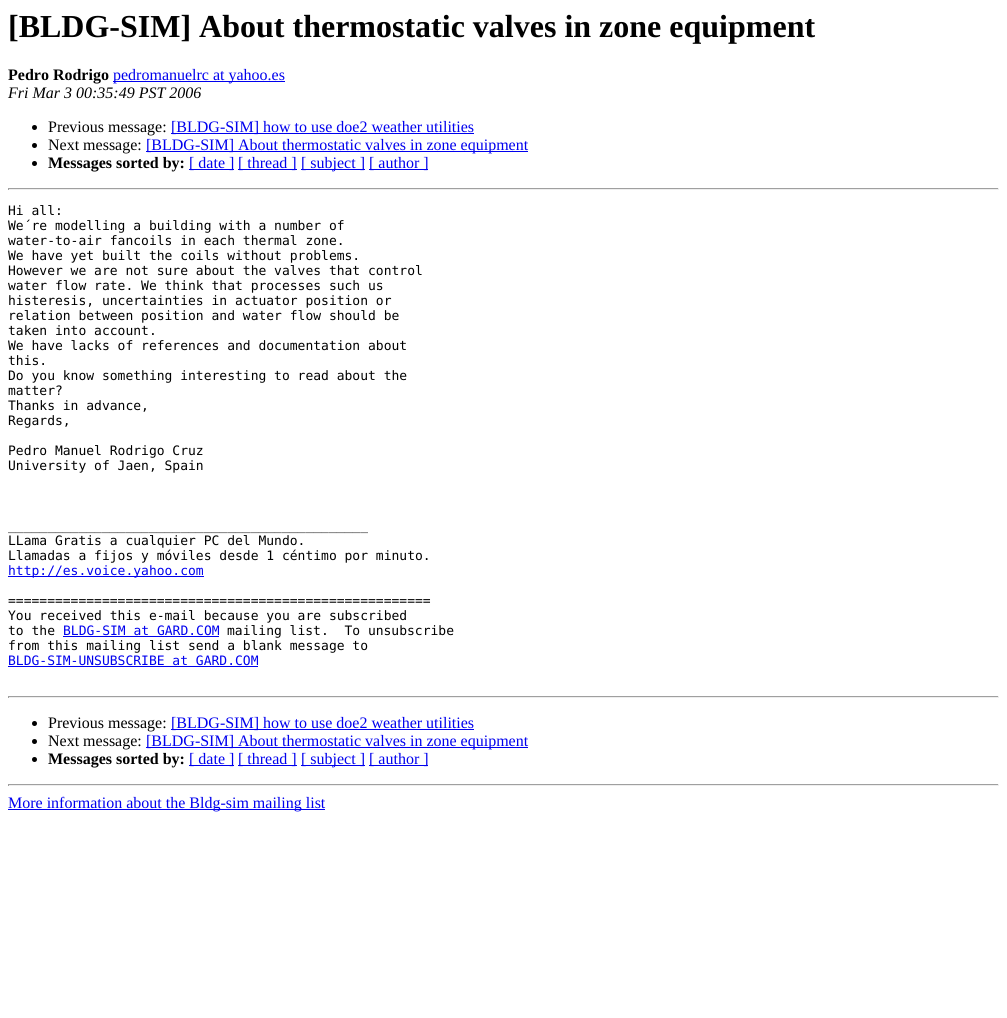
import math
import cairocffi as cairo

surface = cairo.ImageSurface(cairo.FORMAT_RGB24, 1007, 1018)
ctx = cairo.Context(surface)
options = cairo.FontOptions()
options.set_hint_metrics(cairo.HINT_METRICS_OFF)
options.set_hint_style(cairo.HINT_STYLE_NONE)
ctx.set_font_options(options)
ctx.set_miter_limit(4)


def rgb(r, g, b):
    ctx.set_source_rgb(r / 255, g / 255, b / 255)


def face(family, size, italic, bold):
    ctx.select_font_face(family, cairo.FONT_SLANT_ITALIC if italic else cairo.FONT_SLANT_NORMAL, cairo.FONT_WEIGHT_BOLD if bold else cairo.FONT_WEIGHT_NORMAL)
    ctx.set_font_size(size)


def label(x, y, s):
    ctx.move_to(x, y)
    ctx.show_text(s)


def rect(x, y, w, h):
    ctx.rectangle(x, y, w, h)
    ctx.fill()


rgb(255, 255, 255)
ctx.paint()
face('Liberation Serif', 32, 0, 1)
rgb(0, 0, 0)
label(8, 37, '[BLDG-SIM] About thermostatic valves in zone equipment')
face('Liberation Serif', 16, 0, 1)
label(8, 80, 'Pedro Rodrigo')
rgb(0, 0, 238)
rect(113, 81, 172, 1)
face('Liberation Serif', 16, 0, 0)
label(113, 80, 'pedromanuelrc at yahoo.es')
face('Liberation Serif', 16, 1, 0)
rgb(0, 0, 0)
label(8, 98, 'Fri Mar 3 00:35:49 PST 2006')
ctx.new_path()
ctx.arc(34.5, 127.5, 2.5, 0, 2 * math.pi)
ctx.fill()
face('Liberation Serif', 16, 0, 0)
label(48, 132, 'Previous message:')
rgb(0, 0, 238)
rect(171, 133, 303, 1)
label(171, 132, '[BLDG-SIM] how to use doe2 weather utilities')
rgb(0, 0, 0)
ctx.new_path()
ctx.arc(34.5, 145.5, 2.5, 0, 2 * math.pi)
ctx.fill()
label(48, 150, 'Next message:')
rgb(0, 0, 238)
rect(146, 151, 382, 1)
label(146, 150, '[BLDG-SIM] About thermostatic valves in zone equipment')
rgb(0, 0, 0)
ctx.new_path()
ctx.arc(34.5, 163.5, 2.5, 0, 2 * math.pi)
ctx.fill()
face('Liberation Serif', 16, 0, 1)
label(48, 168, 'Messages sorted by:')
rgb(0, 0, 238)
rect(189, 169, 45, 1)
face('Liberation Serif', 16, 0, 0)
label(189, 168, '[ date ]')
rect(238, 169, 59, 1)
label(238, 168, '[ thread ]')
rect(301, 169, 64, 1)
label(301, 168, '[ subject ]')
rect(369, 169, 59, 1)
label(369, 168, '[ author ]')
rgb(159, 159, 159)
rect(8, 188, 991, 1)
rgb(238, 238, 238)
rect(998, 188, 1, 2)
rect(8, 189, 991, 1)
rgb(159, 159, 159)
rect(8, 188, 1, 2)
face('DejaVu Sans Mono', 13, 0, 0)
rgb(0, 0, 0)
label(8, 215, 'Hi all:')
label(8, 230, 'We´re modelling a building with a number of')
label(8, 245, 'water-to-air fancoils in each thermal zone.')
label(8, 260, 'We have yet built the coils without problems.')
label(8, 275, 'However we are not sure about the valves that control')
label(8, 290, 'water flow rate. We think that processes such us')
label(8, 305, 'histeresis, uncertainties in actuator position or')
label(8, 320, 'relation between position and water flow should be')
label(8, 335, 'taken into account.')
label(8, 350, 'We have lacks of references and documentation about')
label(8, 365, 'this.')
label(8, 380, 'Do you know something interesting to read about the')
label(8, 395, 'matter?')
label(8, 410, 'Thanks in advance,')
label(8, 425, 'Regards,')
label(8, 455, 'Pedro Manuel Rodrigo Cruz')
label(8, 470, 'University of Jaen, Spain')
label(8, 530, '______________________________________________')
label(8, 545, 'LLama Gratis a cualquier PC del Mundo.')
label(8, 560, 'Llamadas a fijos y móviles desde 1 céntimo por minuto.')
rgb(0, 0, 238)
rect(8, 576, 196, 1)
label(8, 575, 'http://es.voice.yahoo.com')
rgb(0, 0, 0)
label(8, 605, '======================================================')
label(8, 620, 'You received this e-mail because you are subscribed')
label(8, 635, 'to the')
rgb(0, 0, 238)
label(63, 635, 'BLDG-SIM at GARD.COM')
rect(63, 636, 156, 1)
rgb(0, 0, 0)
label(227, 635, 'mailing list.  To unsubscribe')
label(8, 650, 'from this mailing list send a blank message to')
rgb(0, 0, 238)
label(8, 665, 'BLDG-SIM-UNSUBSCRIBE at GARD.COM')
rect(8, 666, 250, 1)
rgb(159, 159, 159)
rect(8, 696, 991, 1)
rgb(238, 238, 238)
rect(998, 696, 1, 2)
rect(8, 697, 991, 1)
rgb(159, 159, 159)
rect(8, 696, 1, 2)
rgb(0, 0, 0)
ctx.new_path()
ctx.arc(34.5, 723.5, 2.5, 0, 2 * math.pi)
ctx.fill()
face('Liberation Serif', 16, 0, 0)
label(48, 728, 'Previous message:')
rgb(0, 0, 238)
rect(171, 729, 303, 1)
label(171, 728, '[BLDG-SIM] how to use doe2 weather utilities')
rgb(0, 0, 0)
ctx.new_path()
ctx.arc(34.5, 741.5, 2.5, 0, 2 * math.pi)
ctx.fill()
label(48, 746, 'Next message:')
rgb(0, 0, 238)
rect(146, 747, 382, 1)
label(146, 746, '[BLDG-SIM] About thermostatic valves in zone equipment')
rgb(0, 0, 0)
ctx.new_path()
ctx.arc(34.5, 759.5, 2.5, 0, 2 * math.pi)
ctx.fill()
face('Liberation Serif', 16, 0, 1)
label(48, 764, 'Messages sorted by:')
rgb(0, 0, 238)
rect(189, 765, 45, 1)
face('Liberation Serif', 16, 0, 0)
label(189, 764, '[ date ]')
rect(238, 765, 59, 1)
label(238, 764, '[ thread ]')
rect(301, 765, 64, 1)
label(301, 764, '[ subject ]')
rect(369, 765, 59, 1)
label(369, 764, '[ author ]')
rgb(159, 159, 159)
rect(8, 784, 991, 1)
rgb(238, 238, 238)
rect(998, 784, 1, 2)
rect(8, 785, 991, 1)
rgb(159, 159, 159)
rect(8, 784, 1, 2)
rgb(0, 0, 238)
rect(8, 809, 317, 1)
label(8, 808, 'More information about the Bldg-sim mailing list')
surface.write_to_png('render.png')
